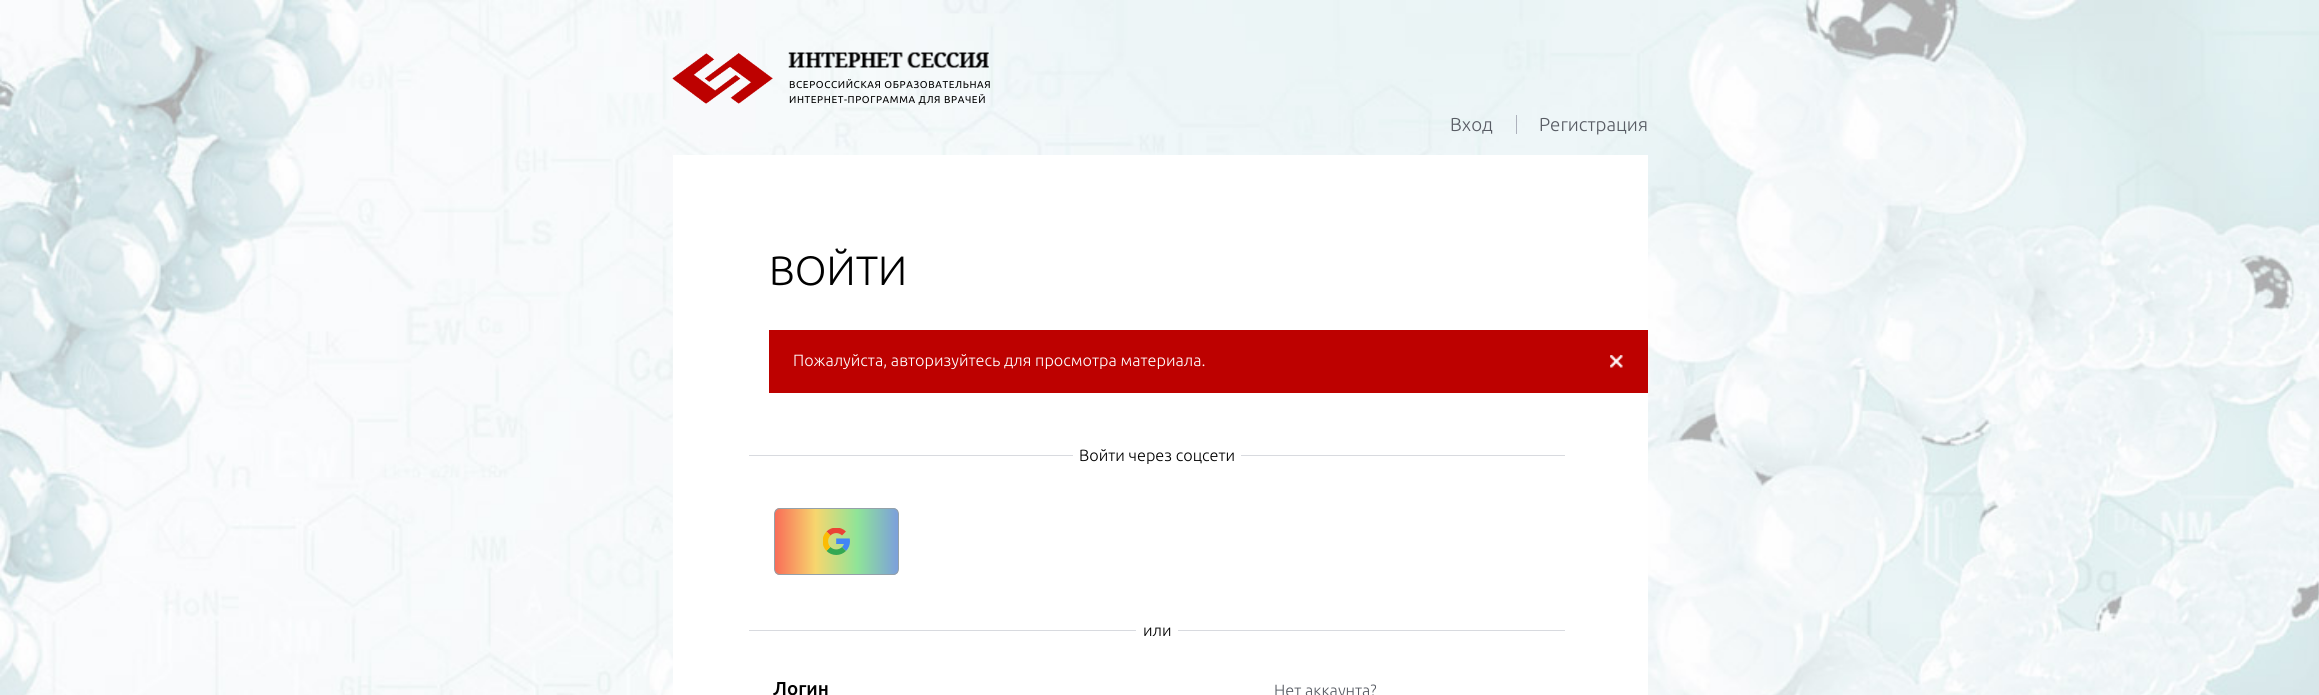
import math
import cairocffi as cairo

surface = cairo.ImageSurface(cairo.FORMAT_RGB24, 2319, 695)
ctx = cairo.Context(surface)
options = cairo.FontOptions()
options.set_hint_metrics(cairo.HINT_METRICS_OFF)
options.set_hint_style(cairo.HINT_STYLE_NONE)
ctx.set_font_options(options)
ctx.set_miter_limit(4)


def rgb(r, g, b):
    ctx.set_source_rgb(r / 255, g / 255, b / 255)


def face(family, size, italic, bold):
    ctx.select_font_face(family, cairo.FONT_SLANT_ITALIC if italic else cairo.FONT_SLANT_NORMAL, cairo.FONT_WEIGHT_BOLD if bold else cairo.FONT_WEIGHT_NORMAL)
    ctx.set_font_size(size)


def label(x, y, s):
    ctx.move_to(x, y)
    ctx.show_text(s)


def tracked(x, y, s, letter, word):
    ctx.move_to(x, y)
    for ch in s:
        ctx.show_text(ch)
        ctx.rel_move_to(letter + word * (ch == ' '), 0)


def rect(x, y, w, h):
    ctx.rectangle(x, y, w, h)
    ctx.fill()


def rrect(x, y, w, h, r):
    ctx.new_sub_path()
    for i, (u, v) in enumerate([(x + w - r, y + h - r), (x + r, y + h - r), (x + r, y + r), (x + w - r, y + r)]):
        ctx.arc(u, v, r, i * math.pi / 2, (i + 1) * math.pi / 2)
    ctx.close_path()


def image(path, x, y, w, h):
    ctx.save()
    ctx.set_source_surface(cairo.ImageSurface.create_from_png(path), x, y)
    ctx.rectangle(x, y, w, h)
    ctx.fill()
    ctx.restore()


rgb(255, 255, 255)
ctx.paint()
image('image0.png', 0, 0, 2319, 695)
image('image1.png', 672, 53, 101, 51)
image('image2.png', 788, 52, 201, 16)
face('Ubuntu', 10, 0, 0)
rgb(0, 0, 0)
tracked(789, 88, 'ВСЕРОССИЙСКАЯ ОБРАЗОВАТЕЛЬНАЯ', 0.6, 0)
tracked(789, 103, 'ИНТЕРНЕТ-ПРОГРАММА ДЛЯ ВРАЧЕЙ', 0.6, 0)
rgb(173, 177, 188)
rect(1516, 115, 1, 19)
face('Ubuntu Light', 18.75, 0, 0)
rgb(88, 92, 100)
label(1450, 131, 'Вход')
label(1539, 131, 'Регистрация')
rgb(255, 255, 255)
rect(673, 155, 975, 540)
face('Ubuntu Light', 41, 0, 0)
rgb(0, 0, 0)
label(769, 285, 'ВОЙТИ')
rgb(189, 1, 0)
rect(769, 330, 879, 63)
face('Ubuntu Light', 16.25, 0, 0)
rgb(255, 255, 255)
label(793, 366, 'Пожалуйста, авторизуйтесь для просмотра материала.')
image('image3.png', 1610, 355, 13, 13)
rgb(216, 218, 223)
rect(749, 455, 324, 1)
rgb(0, 0, 0)
label(1079, 461, 'Войти через соцсети')
rgb(216, 218, 223)
rect(1241, 455, 324, 1)
ctx.save()
rrect(774, 508, 125, 67, 6)
ctx.clip()
gradient = cairo.LinearGradient(775, 541, 898, 541)
gradient.add_color_stop_rgba(0, 0.976, 0.427, 0.345, 1)
gradient.add_color_stop_rgba(0.33, 0.969, 0.839, 0.431, 1)
gradient.add_color_stop_rgba(0.67, 0.561, 0.894, 0.596, 1)
gradient.add_color_stop_rgba(1, 0.486, 0.624, 0.863, 1)
ctx.set_source(gradient)
rect(775, 508, 123, 67)
ctx.restore()
rrect(774.5, 508.5, 124, 66, 5.5)
rgb(148, 161, 169)
ctx.set_line_width(1)
ctx.stroke()
image('image4.png', 823, 528, 27, 27)
rgb(216, 218, 223)
rect(749, 630, 387, 1)
rgb(0, 0, 0)
label(1143, 636, 'или')
rgb(216, 218, 223)
rect(1178, 630, 387, 1)
face('Ubuntu Medium', 18.75, 0, 0)
rgb(0, 0, 0)
label(773, 695, 'Логин')
face('Ubuntu Light', 16.25, 0, 0)
rgb(88, 92, 100)
label(1274, 696, 'Нет аккаунта?')
surface.write_to_png('render.png')
